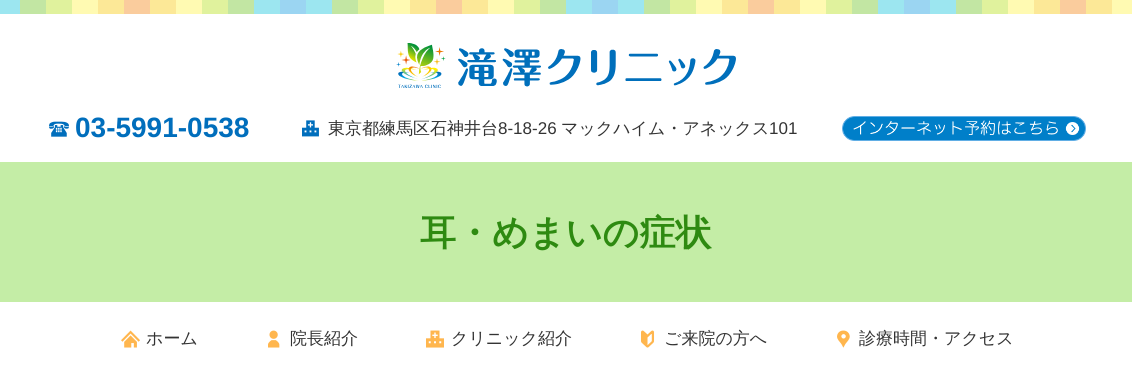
import math
import cairocffi as cairo

surface = cairo.ImageSurface(cairo.FORMAT_RGB24, 1132, 372)
ctx = cairo.Context(surface)
options = cairo.FontOptions()
options.set_hint_metrics(cairo.HINT_METRICS_OFF)
options.set_hint_style(cairo.HINT_STYLE_NONE)
ctx.set_font_options(options)
ctx.set_miter_limit(4)


def rgb(r, g, b):
    ctx.set_source_rgb(r / 255, g / 255, b / 255)


def face(family, size, italic, bold):
    ctx.select_font_face(family, cairo.FONT_SLANT_ITALIC if italic else cairo.FONT_SLANT_NORMAL, cairo.FONT_WEIGHT_BOLD if bold else cairo.FONT_WEIGHT_NORMAL)
    ctx.set_font_size(size)


def label(x, y, s):
    ctx.move_to(x, y)
    ctx.show_text(s)


def rect(x, y, w, h):
    ctx.rectangle(x, y, w, h)
    ctx.fill()


def image(path, x, y, w, h):
    ctx.save()
    ctx.set_source_surface(cairo.ImageSurface.create_from_png(path), x, y)
    ctx.rectangle(x, y, w, h)
    ctx.fill()
    ctx.restore()


rgb(255, 255, 255)
ctx.paint()
image('image0.png', 0, 0, 1132, 14)
image('image1.png', 396, 43, 340, 45)
image('image2.png', 49, 121, 20, 16)
face('Liberation Sans', 28, 0, 1)
rgb(0, 110, 188)
label(75, 137, '03-5991-0538')
image('image3.png', 302, 120, 17, 17)
face('WenQuanYi Zen Hei Medium', 17, 0, 0)
rgb(51, 51, 51)
label(328, 134, '東京都練馬区石神井台')
face('Liberation Sans', 17, 0, 0)
label(498, 134, '8-18-26')
face('WenQuanYi Zen Hei Medium', 17, 0, 0)
label(561, 134, 'マックハイム・アネックス')
face('Liberation Sans', 17, 0, 0)
label(769, 134, '101')
image('image4.png', 842, 116, 244, 25)
rgb(196, 237, 166)
rect(0, 162, 1132, 140)
face('WenQuanYi Zen Hei', 36, 0, 1)
rgb(46, 138, 17)
label(420, 245, '耳・めまいの症状')
image('image5.png', 121, 330, 19, 18)
face('WenQuanYi Zen Hei Medium', 17, 0, 0)
rgb(51, 51, 51)
label(146, 344, 'ホーム')
image('image6.png', 268, 330, 12, 18)
label(290, 344, '院長紹介')
image('image7.png', 426, 330, 18, 18)
label(451, 344, 'クリニック紹介')
image('image8.png', 641, 330, 14, 18)
label(664, 344, 'ご来院の方へ')
image('image9.png', 837, 330, 13, 18)
label(859, 344, '診療時間・アクセス')
surface.write_to_png('render.png')
